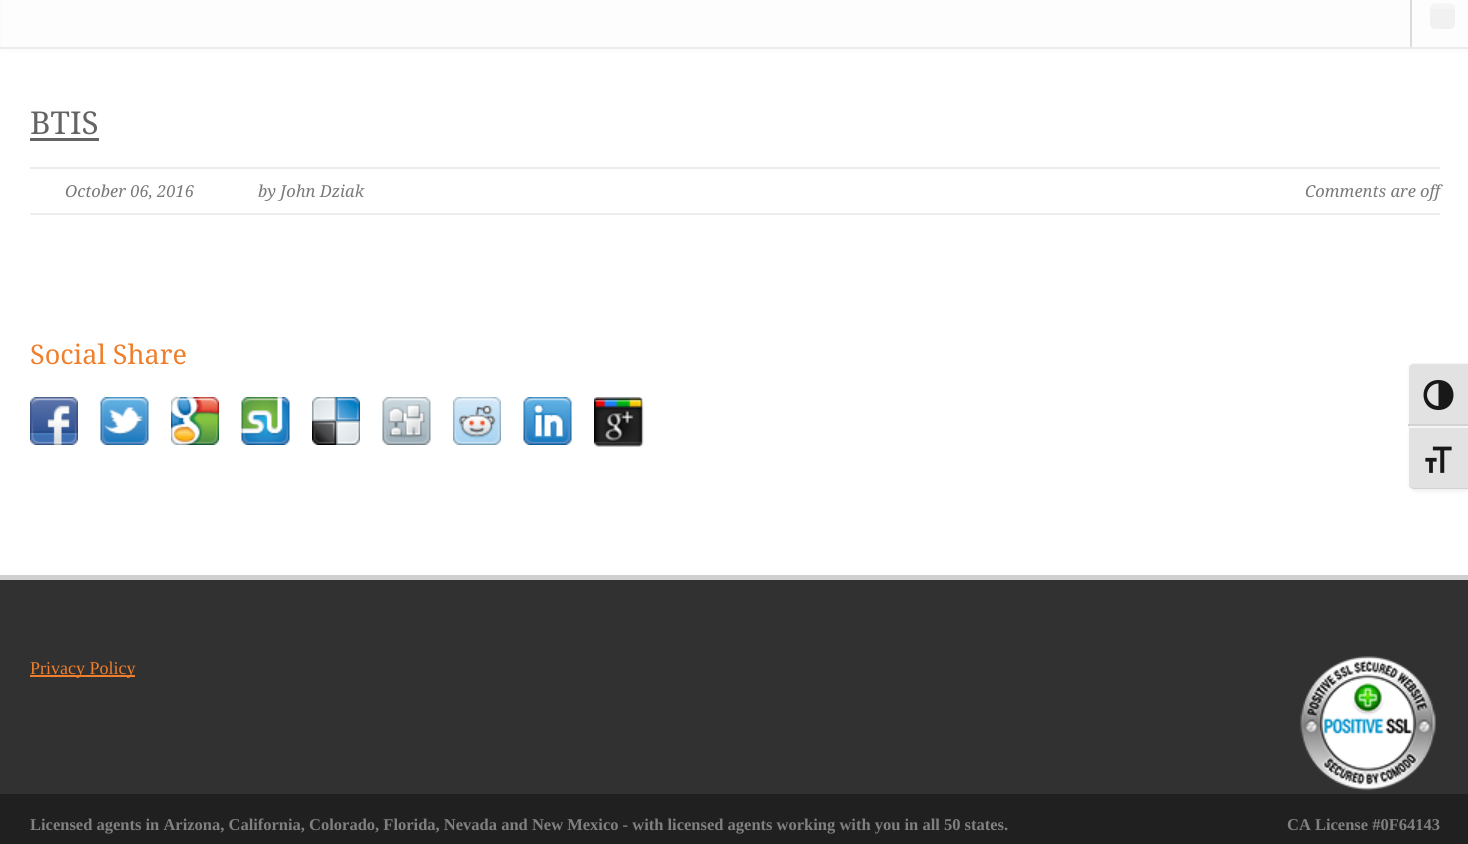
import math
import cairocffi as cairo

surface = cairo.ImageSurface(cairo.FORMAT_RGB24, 1468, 844)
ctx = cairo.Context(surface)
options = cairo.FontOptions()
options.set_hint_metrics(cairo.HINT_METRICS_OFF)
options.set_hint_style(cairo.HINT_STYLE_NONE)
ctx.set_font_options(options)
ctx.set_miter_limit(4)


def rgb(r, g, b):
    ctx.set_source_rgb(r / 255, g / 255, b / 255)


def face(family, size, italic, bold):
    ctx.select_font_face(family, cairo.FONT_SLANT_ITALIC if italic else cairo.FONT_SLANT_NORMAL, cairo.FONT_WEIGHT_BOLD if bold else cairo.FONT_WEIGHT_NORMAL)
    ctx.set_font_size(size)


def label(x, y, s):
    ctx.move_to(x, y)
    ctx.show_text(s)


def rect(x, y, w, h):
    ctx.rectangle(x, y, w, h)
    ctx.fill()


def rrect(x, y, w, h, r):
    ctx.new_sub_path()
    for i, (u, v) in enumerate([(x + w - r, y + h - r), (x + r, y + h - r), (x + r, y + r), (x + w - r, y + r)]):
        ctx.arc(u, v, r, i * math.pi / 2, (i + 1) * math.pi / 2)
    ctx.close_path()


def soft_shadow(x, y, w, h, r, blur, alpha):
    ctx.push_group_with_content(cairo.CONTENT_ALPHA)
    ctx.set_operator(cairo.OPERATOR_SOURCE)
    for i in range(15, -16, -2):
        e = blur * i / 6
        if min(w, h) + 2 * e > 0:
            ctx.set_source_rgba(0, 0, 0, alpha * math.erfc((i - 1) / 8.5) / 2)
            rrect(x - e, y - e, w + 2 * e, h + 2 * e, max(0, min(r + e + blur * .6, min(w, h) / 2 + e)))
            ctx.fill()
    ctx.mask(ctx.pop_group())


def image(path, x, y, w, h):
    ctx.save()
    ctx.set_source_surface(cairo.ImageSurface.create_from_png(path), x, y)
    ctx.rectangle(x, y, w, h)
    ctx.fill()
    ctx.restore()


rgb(255, 255, 255)
ctx.paint()
rgb(245, 245, 245)
soft_shadow(2, -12, 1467, 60, 0, 4, 1)
rgb(253, 253, 253)
rect(2, 0, 1466, 47)
rgb(236, 236, 236)
rect(0, 47, 1468, 2)
rgb(219, 219, 219)
rect(1410, 0, 2, 47)
rgb(241, 241, 241)
rrect(1430, 3, 25, 26, 5)
ctx.fill()
image('image0.png', 1430, 3, 25, 6)
face('Droid Serif', 31.5, 0, 0)
rgb(100, 100, 100)
label(30, 134, 'BTIS')
rect(30, 138, 69, 3)
rgb(236, 236, 236)
rect(30, 167, 1410, 2)
rect(30, 213, 1410, 2)
face('Droid Serif', 16.5, 1, 0)
rgb(121, 121, 121)
label(65, 197, 'October 06, 2016')
label(258, 197, 'by John Dziak')
label(1305, 197, 'Comments are off')
face('Droid Serif', 27, 0, 0)
rgb(239, 127, 44)
label(30, 364, 'Social Share')
image('image1.png', 30, 397, 48, 48)
image('image2.png', 100, 397, 49, 48)
image('image3.png', 171, 397, 48, 48)
image('image4.png', 241, 397, 49, 48)
image('image5.png', 312, 397, 48, 48)
image('image6.png', 382, 397, 49, 48)
image('image7.png', 453, 397, 48, 48)
image('image8.png', 523, 397, 49, 48)
image('image9.png', 594, 397, 50, 50)
rgb(49, 49, 49)
rect(0, 580, 1468, 214)
rgb(207, 207, 207)
rect(0, 575, 1468, 5)
rgb(239, 127, 44)
rect(30, 675, 105, 2)
face('Liberation Serif', 18, 0, 0)
label(30, 674, 'Privacy Policy')
image('image10.png', 1300, 656, 136, 135)
rgb(32, 32, 32)
rect(0, 794, 1468, 50)
face('Liberation Serif', 16.5, 0, 1)
rgb(128, 128, 128)
label(30, 830, 'Licensed agents in Arizona, California, Colorado, Florida, Nevada and New Mexico - with licensed agents working with you in all 50 states.')
label(1287, 830, 'CA License #0F64143')
rgb(236, 236, 236)
soft_shadow(1410, 365, 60, 63, 6, 2, 1)
rgb(226, 226, 226)
ctx.new_path()
ctx.move_to(1415, 363)
ctx.line_to(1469, 363)
ctx.line_to(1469, 426)
ctx.line_to(1409, 426)
ctx.line_to(1409, 369)
ctx.curve_to(1409, 365.5, 1411.5, 363, 1415, 363)
ctx.close_path()
ctx.fill()
rgb(245, 245, 245)
ctx.new_path()
ctx.move_to(1414, 363)
ctx.curve_to(1412, 363, 1408, 365, 1408, 367)
ctx.curve_to(1409, 366, 1412, 364, 1414, 364)
ctx.line_to(1468, 364)
ctx.line_to(1468, 363)
ctx.close_path()
ctx.fill()
rgb(210, 210, 210)
rect(1408, 424, 60, 2)
rgb(24, 24, 24)
ctx.new_path()
ctx.move_to(1438.5, 380)
ctx.curve_to(1418.5, 380, 1418.5, 410, 1438.5, 410)
ctx.curve_to(1458.5, 410, 1458.5, 380, 1438.5, 380)
ctx.close_path()
ctx.move_to(1427, 395)
ctx.curve_to(1427, 388.5, 1432.5, 383.5, 1438.5, 383.5)
ctx.line_to(1438.5, 406)
ctx.curve_to(1432.5, 406, 1427, 401, 1427, 395)
ctx.close_path()
ctx.fill()
rgb(236, 236, 236)
soft_shadow(1410, 428, 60, 63, 6, 2, 1)
rgb(226, 226, 226)
ctx.new_path()
ctx.move_to(1409, 426)
ctx.line_to(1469, 426)
ctx.line_to(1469, 489)
ctx.line_to(1415, 489)
ctx.curve_to(1411.5, 489, 1409, 486.5, 1409, 483)
ctx.close_path()
ctx.fill()
rgb(245, 245, 245)
rect(1408, 426, 60, 2)
rgb(210, 210, 210)
ctx.new_path()
ctx.move_to(1468, 489)
ctx.line_to(1468, 488)
ctx.line_to(1414, 488)
ctx.curve_to(1412, 488, 1409, 486, 1408, 485)
ctx.curve_to(1409, 487, 1412, 489, 1414, 489)
ctx.close_path()
ctx.fill()
image('image11.png', 1425, 446, 27, 27)
surface.write_to_png('render.png')
